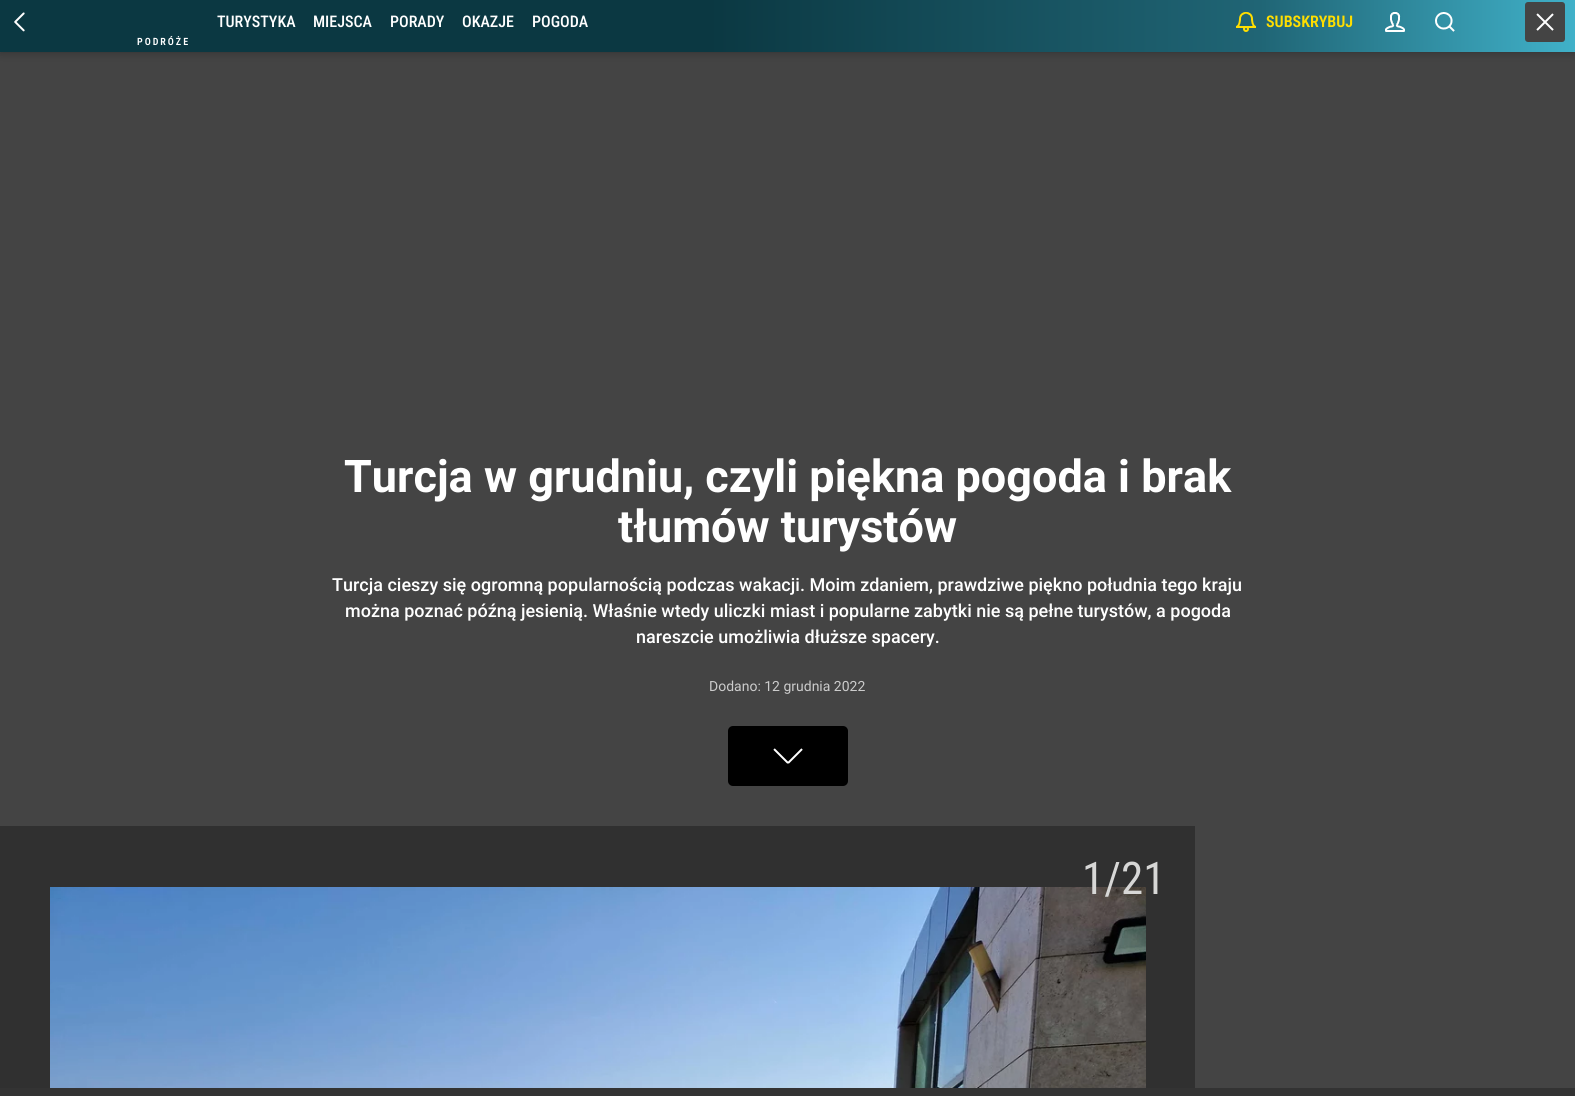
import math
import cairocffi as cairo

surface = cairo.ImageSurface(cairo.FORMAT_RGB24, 1575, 1096)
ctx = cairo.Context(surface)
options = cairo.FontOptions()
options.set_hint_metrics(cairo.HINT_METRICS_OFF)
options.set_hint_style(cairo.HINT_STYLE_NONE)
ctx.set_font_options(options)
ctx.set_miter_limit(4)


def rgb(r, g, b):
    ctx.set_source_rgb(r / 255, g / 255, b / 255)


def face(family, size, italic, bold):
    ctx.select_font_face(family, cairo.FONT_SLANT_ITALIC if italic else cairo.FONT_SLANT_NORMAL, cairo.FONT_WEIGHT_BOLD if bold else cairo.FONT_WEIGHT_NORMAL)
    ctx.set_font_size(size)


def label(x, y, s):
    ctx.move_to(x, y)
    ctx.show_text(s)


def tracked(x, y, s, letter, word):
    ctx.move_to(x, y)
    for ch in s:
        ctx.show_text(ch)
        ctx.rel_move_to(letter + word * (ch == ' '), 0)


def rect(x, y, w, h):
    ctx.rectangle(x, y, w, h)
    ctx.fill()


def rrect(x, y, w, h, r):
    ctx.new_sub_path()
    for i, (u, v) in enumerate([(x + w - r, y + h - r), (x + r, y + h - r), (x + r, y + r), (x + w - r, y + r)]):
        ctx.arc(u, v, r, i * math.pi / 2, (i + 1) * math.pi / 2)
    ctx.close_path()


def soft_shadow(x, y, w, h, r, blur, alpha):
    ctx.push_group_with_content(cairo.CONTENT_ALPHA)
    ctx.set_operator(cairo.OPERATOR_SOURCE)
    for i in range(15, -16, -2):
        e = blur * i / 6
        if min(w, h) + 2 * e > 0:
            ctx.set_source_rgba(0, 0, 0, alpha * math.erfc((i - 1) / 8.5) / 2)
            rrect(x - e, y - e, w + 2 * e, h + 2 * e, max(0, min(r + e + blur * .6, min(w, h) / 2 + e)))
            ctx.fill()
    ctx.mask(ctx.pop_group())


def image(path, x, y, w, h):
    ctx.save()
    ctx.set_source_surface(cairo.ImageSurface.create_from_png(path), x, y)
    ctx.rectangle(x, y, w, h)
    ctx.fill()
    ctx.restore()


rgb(51, 51, 51)
ctx.paint()
rgb(68, 68, 68)
rect(0, 52, 1575, 774)
rgb(0, 0, 0)
soft_shadow(0, -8, 1575, 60, 0, 5, 0.3)
gradient = cairo.LinearGradient(0, 22, 1575, 22)
gradient.add_color_stop_rgba(0.45, 0.043, 0.22, 0.259, 1)
gradient.add_color_stop_rgba(0.8, 0.125, 0.396, 0.459, 1)
gradient.add_color_stop_rgba(1, 0.251, 0.694, 0.788, 1)
ctx.set_source(gradient)
rect(0, 0, 1575, 52)
image('image0.png', 14, 12, 11, 20)
face('Roboto Condensed Medium', 16, 0, 0)
rgb(255, 255, 255)
label(217, 27, 'TURYSTYKA')
label(313, 27, 'MIEJSCA')
label(390, 27, 'PORADY')
label(462, 27, 'OKAZJE')
label(532, 27, 'POGODA')
image('image1.png', 1236, 12, 20, 20)
face('Roboto Condensed SemiBold', 16, 0, 0)
rgb(255, 222, 0)
label(1266, 27, 'SUBSKRYBUJ')
image('image2.png', 1385, 12, 20, 20)
image('image3.png', 1435, 12, 20, 20)
rgb(68, 68, 68)
rrect(1525, 2, 40, 40, 3)
ctx.fill()
image('image4.png', 1536, 13, 18, 18)
face('Roboto Condensed SemiBold', 10, 0, 0)
rgb(255, 255, 255)
tracked(137, 45, 'PODRÓŻE', 2, 0)
face('Roboto', 45, 0, 1)
label(344, 492, 'Turcja w grudniu, czyli piękna pogoda i brak')
label(618, 542, 'tłumów turystów')
face('Roboto Medium', 18, 0, 0)
label(332, 591, 'Turcja cieszy się ogromną popularnością podczas wakacji. Moim zdaniem, prawdziwe piękno południa tego kraju')
label(345, 617, 'można poznać późną jesienią. Właśnie wtedy uliczki miast i popularne zabytki nie są pełne turystów, a pogoda')
label(636, 643, 'nareszcie umożliwia dłuższe spacery.')
face('Roboto', 14, 0, 0)
rgb(204, 204, 204)
label(709, 691, 'Dodano: 12 grudnia 2022')
rgb(0, 0, 0)
rrect(728, 726, 120, 60, 5)
ctx.fill()
image('image5.png', 773, 748, 30, 16)
rgb(48, 48, 48)
rect(0, 826, 1195, 262)
image('image6.png', 50, 887, 1096, 201)
face('Roboto Condensed', 45, 0, 0)
rgb(215, 215, 214)
label(1082, 894, '1/21')
rgb(68, 68, 68)
rect(1195, 826, 380, 262)
surface.write_to_png('render.png')
